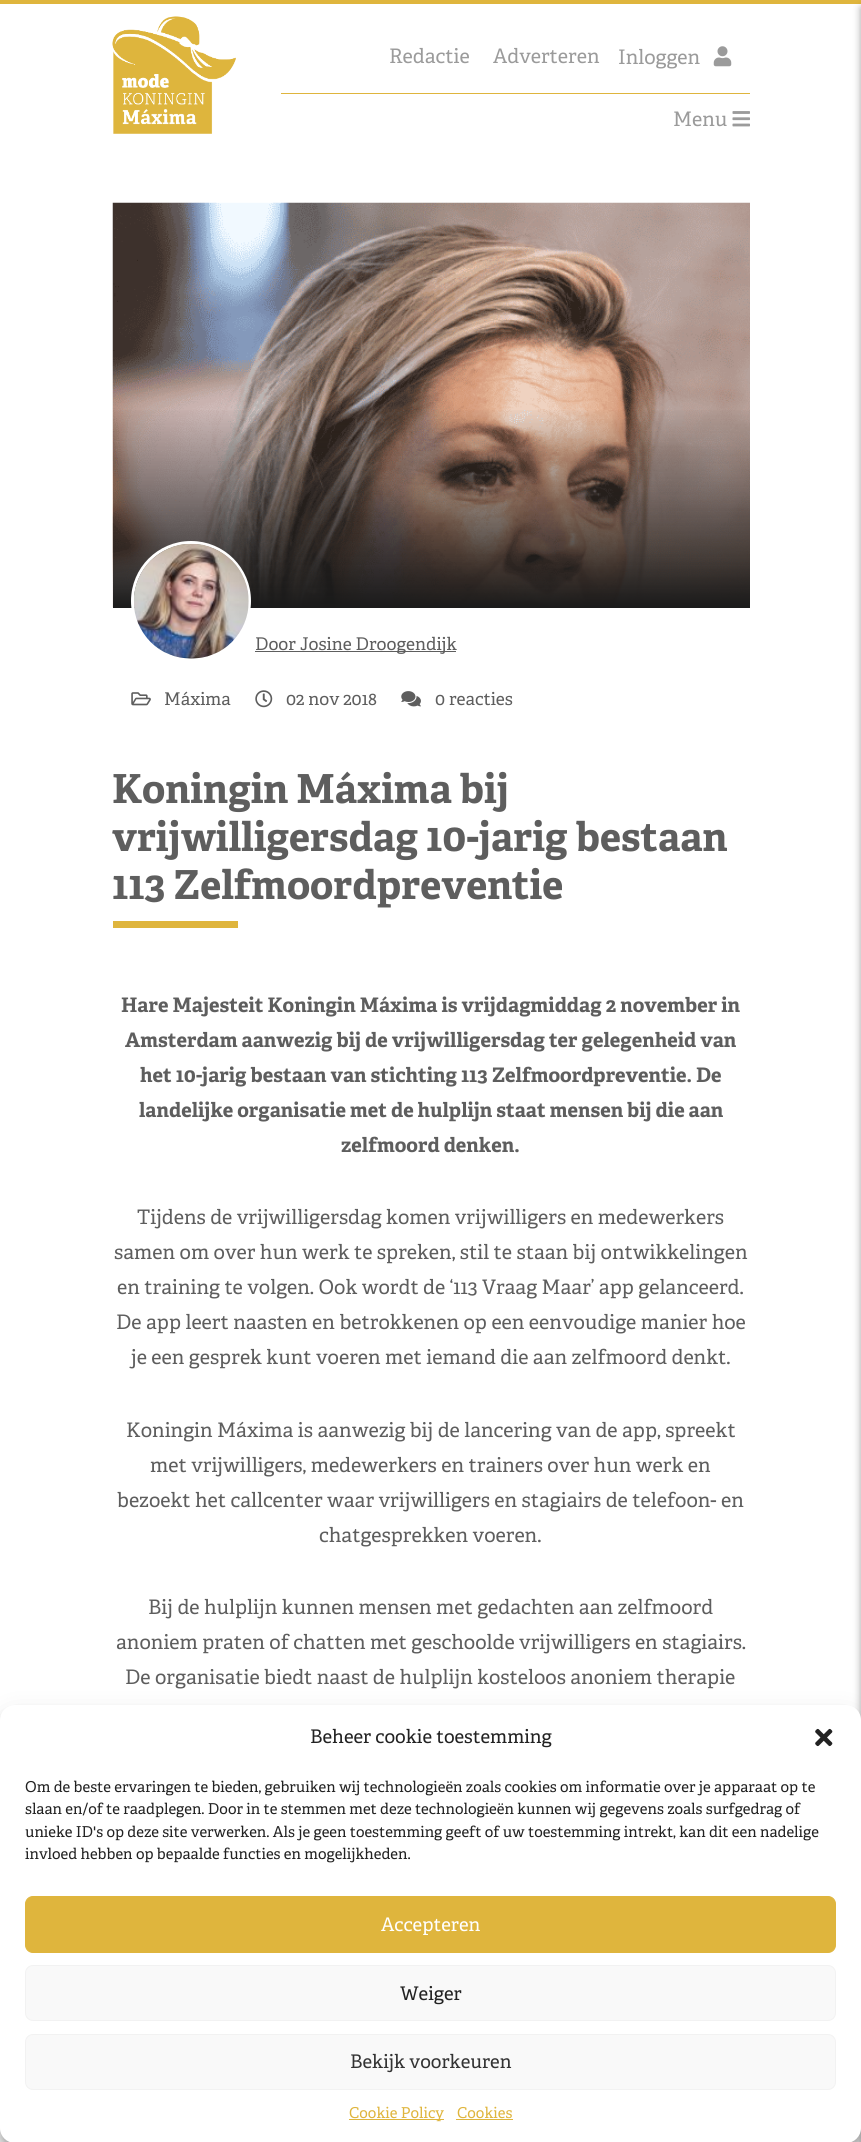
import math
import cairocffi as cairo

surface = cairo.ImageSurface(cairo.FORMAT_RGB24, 861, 2142)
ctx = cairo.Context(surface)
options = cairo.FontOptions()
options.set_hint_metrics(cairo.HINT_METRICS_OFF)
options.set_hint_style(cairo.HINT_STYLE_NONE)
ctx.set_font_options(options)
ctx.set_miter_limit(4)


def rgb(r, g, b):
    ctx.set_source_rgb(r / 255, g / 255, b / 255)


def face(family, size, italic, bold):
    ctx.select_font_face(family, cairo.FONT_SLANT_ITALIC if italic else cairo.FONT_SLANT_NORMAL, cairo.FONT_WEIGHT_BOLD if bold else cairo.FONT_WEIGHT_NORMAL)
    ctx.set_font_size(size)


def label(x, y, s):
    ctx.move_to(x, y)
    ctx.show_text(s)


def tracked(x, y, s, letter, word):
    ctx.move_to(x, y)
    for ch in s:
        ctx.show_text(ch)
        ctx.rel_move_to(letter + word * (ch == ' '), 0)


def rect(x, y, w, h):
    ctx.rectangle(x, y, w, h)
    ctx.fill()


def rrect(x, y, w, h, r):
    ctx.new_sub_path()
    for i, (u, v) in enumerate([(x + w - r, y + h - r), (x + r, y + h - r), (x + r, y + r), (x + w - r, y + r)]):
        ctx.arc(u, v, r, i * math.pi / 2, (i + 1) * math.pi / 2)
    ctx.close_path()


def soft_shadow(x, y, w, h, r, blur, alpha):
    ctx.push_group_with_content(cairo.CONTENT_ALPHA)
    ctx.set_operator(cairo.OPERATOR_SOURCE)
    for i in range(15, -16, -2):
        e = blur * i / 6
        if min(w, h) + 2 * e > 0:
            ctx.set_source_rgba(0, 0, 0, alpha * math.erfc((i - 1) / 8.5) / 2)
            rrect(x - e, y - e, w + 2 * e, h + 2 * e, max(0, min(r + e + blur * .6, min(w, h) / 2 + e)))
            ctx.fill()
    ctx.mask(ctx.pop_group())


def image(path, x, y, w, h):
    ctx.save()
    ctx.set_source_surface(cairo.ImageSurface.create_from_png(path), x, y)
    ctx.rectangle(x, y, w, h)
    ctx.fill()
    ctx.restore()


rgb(255, 255, 255)
ctx.paint()
rgb(223, 181, 61)
rect(0, 0, 861, 4)
image('image0.png', 112, 16, 124, 118)
face('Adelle', 20, 0, 0)
rgb(155, 155, 155)
label(389, 63, 'Redactie')
label(493, 63, 'Adverteren')
label(618, 64, 'Inloggen')
image('image1.png', 713, 46, 19, 21)
rgb(223, 181, 61)
rect(281, 93, 469, 1)
rgb(155, 155, 155)
label(673, 126, 'Menu')
image('image2.png', 732, 111, 18, 16)
rgb(0, 0, 0)
soft_shadow(861, 8, 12, 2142, 0, 4, 0.36)
image('image3.png', 112, 202, 638, 406)
gradient = cairo.LinearGradient(431, 608, 431, 203)
gradient.add_color_stop_rgba(0, 0.102, 0.102, 0.102, 1)
gradient.add_color_stop_rgba(0.5, 0.102, 0.102, 0.102, 0)
ctx.set_source(gradient)
rect(113, 410, 637, 198)
ctx.arc(191, 601, 58.5, 0, 2 * math.pi)
rgb(255, 255, 255)
ctx.set_line_width(3)
ctx.stroke()
image('image4.png', 134, 543, 115, 116)
rgb(94, 94, 94)
rect(255, 651, 201, 1)
face('Adelle', 17.5, 0, 0)
label(255, 650, 'Door Josine Droogendijk')
image('image5.png', 131, 692, 20, 14)
label(164, 705, 'Máxima')
image('image6.png', 255, 690, 18, 18)
label(286, 705, '02 nov 2018')
image('image7.png', 401, 691, 20, 16)
label(435, 705, '0 reacties')
face('Adelle', 40, 0, 1)
label(112, 803, 'Koningin Máxima bij')
label(112, 851, 'vrijwilligersdag 10-jarig bestaan')
label(112, 899, '113 Zelfmoordpreventie')
rgb(223, 181, 61)
rect(113, 921, 125, 7)
face('Adelle', 20, 0, 1)
rgb(94, 94, 94)
label(121, 1012, 'Hare Majesteit Koningin Máxima is vrijdagmiddag 2 november in')
label(125, 1047, 'Amsterdam aanwezig bij de vrijwilligersdag ter gelegenheid van')
label(140, 1082, 'het 10-jarig bestaan van stichting 113 Zelfmoordpreventie. De')
tracked(139, 1117, 'landelijke organisatie met de hulplijn staat mensen bij die aan', 0, -0.1)
label(341, 1152, 'zelfmoord denken.')
face('Adelle', 20, 0, 0)
label(137, 1224, 'Tijdens de vrijwilligersdag komen vrijwilligers en medewerkers')
label(114, 1259, 'samen om over hun werk te spreken, stil te staan bij ontwikkelingen')
label(117, 1294, 'en training te volgen. Ook wordt de ‘113 Vraag Maar’ app gelanceerd.')
label(116, 1329, 'De app leert naasten en betrokkenen op een eenvoudige manier hoe')
label(131, 1364, 'je een gesprek kunt voeren met iemand die aan zelfmoord denkt.')
label(126, 1437, 'Koningin Máxima is aanwezig bij de lancering van de app, spreekt')
label(150, 1472, 'met vrijwilligers, medewerkers en trainers over hun werk en')
label(117, 1507, 'bezoekt het callcenter waar vrijwilligers en stagiairs de telefoon- en')
label(319, 1542, 'chatgesprekken voeren.')
label(148, 1614, 'Bij de hulplijn kunnen mensen met gedachten aan zelfmoord')
label(116, 1649, 'anoniem praten of chatten met geschoolde vrijwilligers en stagiairs.')
label(125, 1684, 'De organisatie biedt naast de hulplijn kosteloos anoniem therapie')
rgb(0, 0, 0)
soft_shadow(0, 1713, 861, 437, 15, 4, 0.23)
soft_shadow(0, 1718, 861, 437, 15, 12.5, 0.19)
rgb(255, 255, 255)
rrect(0, 1705, 861, 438, 15)
ctx.fill()
face('Adelle', 18.75, 0, 0)
rgb(34, 34, 34)
label(310, 1743, 'Beheer cookie toestemming')
image('image8.png', 815, 1728, 18, 19)
face('Adelle', 15, 0, 0)
label(25, 1792, 'Om de beste ervaringen te bieden, gebruiken wij technologieën zoals cookies om informatie over je apparaat op te')
label(25, 1814, 'slaan en/of te raadplegen. Door in te stemmen met deze technologieën kunnen wij gegevens zoals surfgedrag of')
label(25, 1837, 'unieke ID\'s op deze site verwerken. Als je geen toestemming geeft of uw toestemming intrekt, kan dit een nadelige')
label(25, 1859, 'invloed hebben op bepaalde functies en mogelijkheden.')
rgb(223, 181, 61)
rrect(25.5, 1896.5, 810, 56, 7.5)
ctx.fill_preserve()
ctx.set_line_width(1)
ctx.stroke()
face('Adelle', 18.75, 0, 0)
rgb(255, 255, 255)
label(381, 1931, 'Accepteren')
rgb(249, 249, 249)
rrect(25.5, 1965.5, 810, 55, 7.5)
ctx.fill_preserve()
rgb(242, 242, 242)
ctx.stroke()
rgb(34, 34, 34)
label(400, 2000, 'Weiger')
rgb(249, 249, 249)
rrect(25.5, 2034.5, 810, 55, 7.5)
ctx.fill_preserve()
rgb(242, 242, 242)
ctx.stroke()
rgb(51, 51, 51)
label(350, 2068, 'Bekijk voorkeuren')
rgb(223, 181, 61)
rect(349, 2119, 95, 1)
face('Adelle', 15, 0, 0)
label(349, 2118, 'Cookie Policy')
label(457, 2118, 'Cookies')
rect(456, 2119, 57, 1)
surface.write_to_png('render.png')
